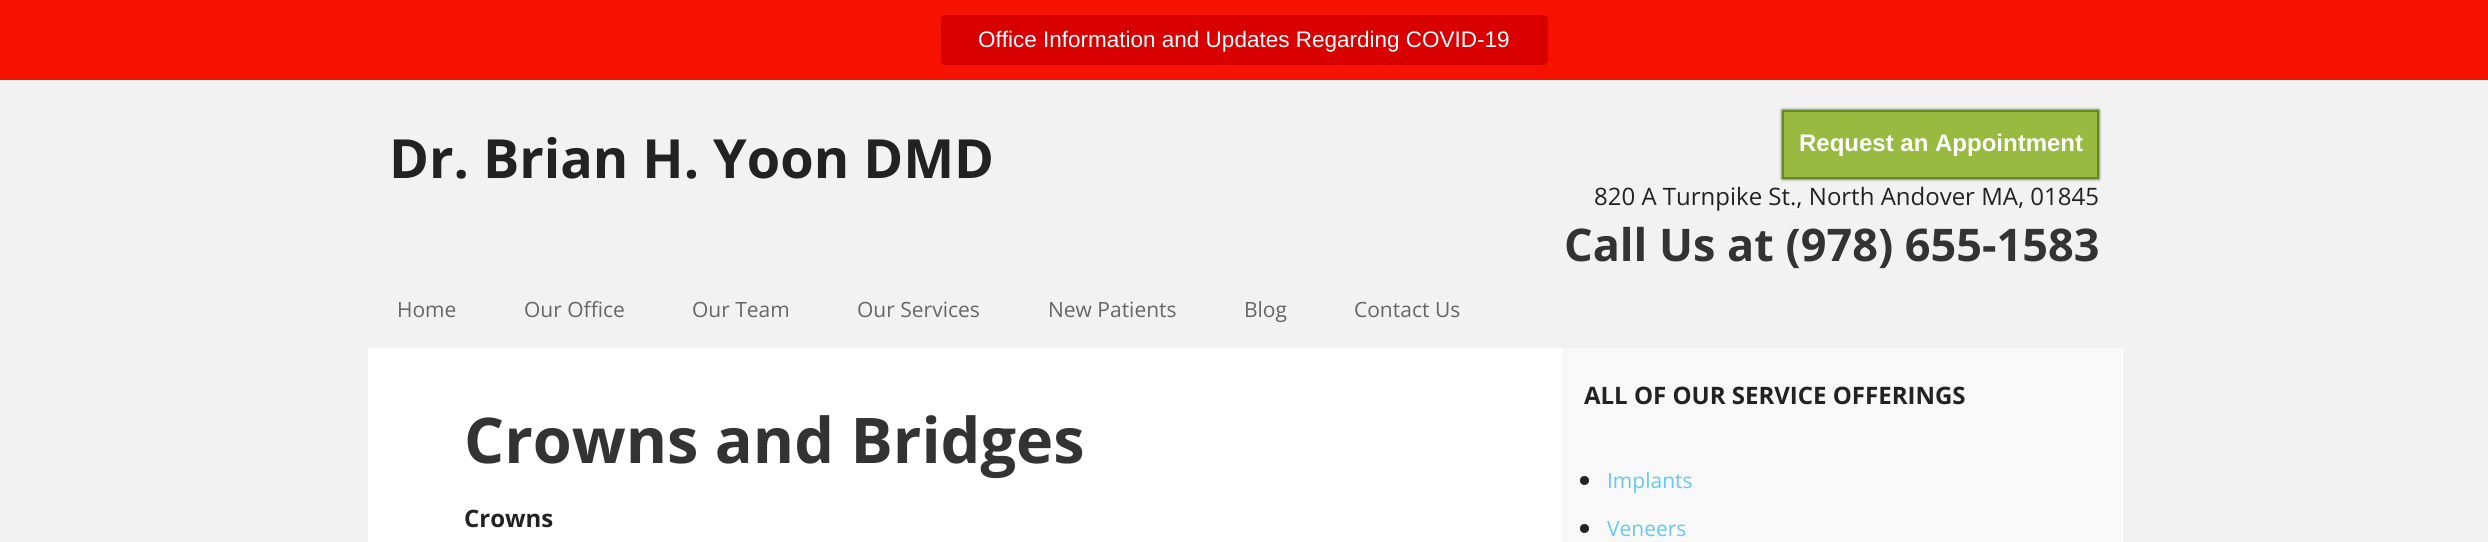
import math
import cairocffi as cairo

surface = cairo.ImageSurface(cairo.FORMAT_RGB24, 2488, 542)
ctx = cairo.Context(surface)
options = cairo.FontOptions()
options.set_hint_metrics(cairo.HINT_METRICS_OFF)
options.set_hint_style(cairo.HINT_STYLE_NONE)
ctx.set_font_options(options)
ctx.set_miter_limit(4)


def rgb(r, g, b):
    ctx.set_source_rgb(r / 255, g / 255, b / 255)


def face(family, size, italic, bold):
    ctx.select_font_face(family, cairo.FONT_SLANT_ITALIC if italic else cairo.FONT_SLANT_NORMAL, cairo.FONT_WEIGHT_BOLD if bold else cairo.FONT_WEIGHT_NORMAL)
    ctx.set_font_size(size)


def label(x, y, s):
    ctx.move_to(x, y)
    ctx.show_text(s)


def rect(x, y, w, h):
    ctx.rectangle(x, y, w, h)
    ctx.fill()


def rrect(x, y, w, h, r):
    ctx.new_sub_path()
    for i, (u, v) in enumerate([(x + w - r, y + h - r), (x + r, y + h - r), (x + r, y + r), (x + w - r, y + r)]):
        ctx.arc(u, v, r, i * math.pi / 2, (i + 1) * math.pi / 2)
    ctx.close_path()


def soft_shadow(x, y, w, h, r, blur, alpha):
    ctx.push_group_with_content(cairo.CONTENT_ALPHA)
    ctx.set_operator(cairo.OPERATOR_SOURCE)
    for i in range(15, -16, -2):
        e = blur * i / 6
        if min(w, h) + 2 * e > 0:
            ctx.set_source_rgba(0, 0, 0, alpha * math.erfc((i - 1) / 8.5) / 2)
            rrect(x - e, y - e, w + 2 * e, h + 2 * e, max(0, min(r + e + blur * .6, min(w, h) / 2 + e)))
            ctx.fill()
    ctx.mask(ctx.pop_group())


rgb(242, 242, 242)
ctx.paint()
rgb(247, 18, 0)
rect(0, 0, 2488, 80)
rgb(216, 0, 0)
rrect(941, 15, 607, 50, 5)
ctx.fill()
face('Liberation Sans', 22.5, 0, 0)
rgb(255, 255, 255)
label(978, 47, 'Office Information and Updates Regarding COVID-19')
face('Open Sans', 54, 0, 1)
rgb(34, 34, 34)
label(389, 178, 'Dr. Brian H. Yoon DMD')
rgb(51, 51, 51)
soft_shadow(1782, 110, 317, 69, 0, 1.5, 1)
rgb(152, 186, 64)
ctx.rectangle(1783, 111, 315, 67)
ctx.fill_preserve()
rgb(97, 137, 38)
ctx.stroke()
face('Liberation Sans', 24, 0, 1)
rgb(255, 255, 255)
label(1799, 151, 'Request an Appointment')
face('Open Sans', 24, 0, 0)
rgb(34, 34, 34)
label(1594, 205, '820 A Turnpike St., North Andover MA, 01845')
face('Open Sans', 45, 0, 1)
rgb(51, 51, 51)
label(1564, 261, 'Call Us at (978) 655-1583')
face('Open Sans', 21, 0, 0)
rgb(102, 102, 102)
label(397, 317, 'Home')
label(524, 317, 'Our Office')
label(692, 317, 'Our Team')
label(857, 317, 'Our Services')
label(1048, 317, 'New Patients')
label(1244, 317, 'Blog')
label(1354, 317, 'Contact Us')
rgb(255, 255, 255)
rect(368, 348, 1755, 194)
face('Open Sans', 63, 0, 1)
rgb(51, 51, 51)
label(464, 463, 'Crowns and Bridges')
face('Open Sans', 24, 0, 1)
rgb(34, 34, 34)
label(464, 527, 'Crowns')
rgb(248, 248, 248)
rect(1562, 348, 559, 194)
rgb(34, 34, 34)
label(1584, 404, 'ALL OF OUR SERVICE OFFERINGS')
ctx.new_path()
ctx.arc(1584.5, 480.5, 4.5, 0, 2 * math.pi)
ctx.fill()
face('Open Sans', 21, 0, 0)
rgb(100, 201, 234)
label(1607, 488, 'Implants')
rgb(34, 34, 34)
ctx.new_path()
ctx.arc(1584.5, 528.5, 4.5, 0, 2 * math.pi)
ctx.fill()
rgb(100, 201, 234)
label(1607, 536, 'Veneers')
surface.write_to_png('render.png')
